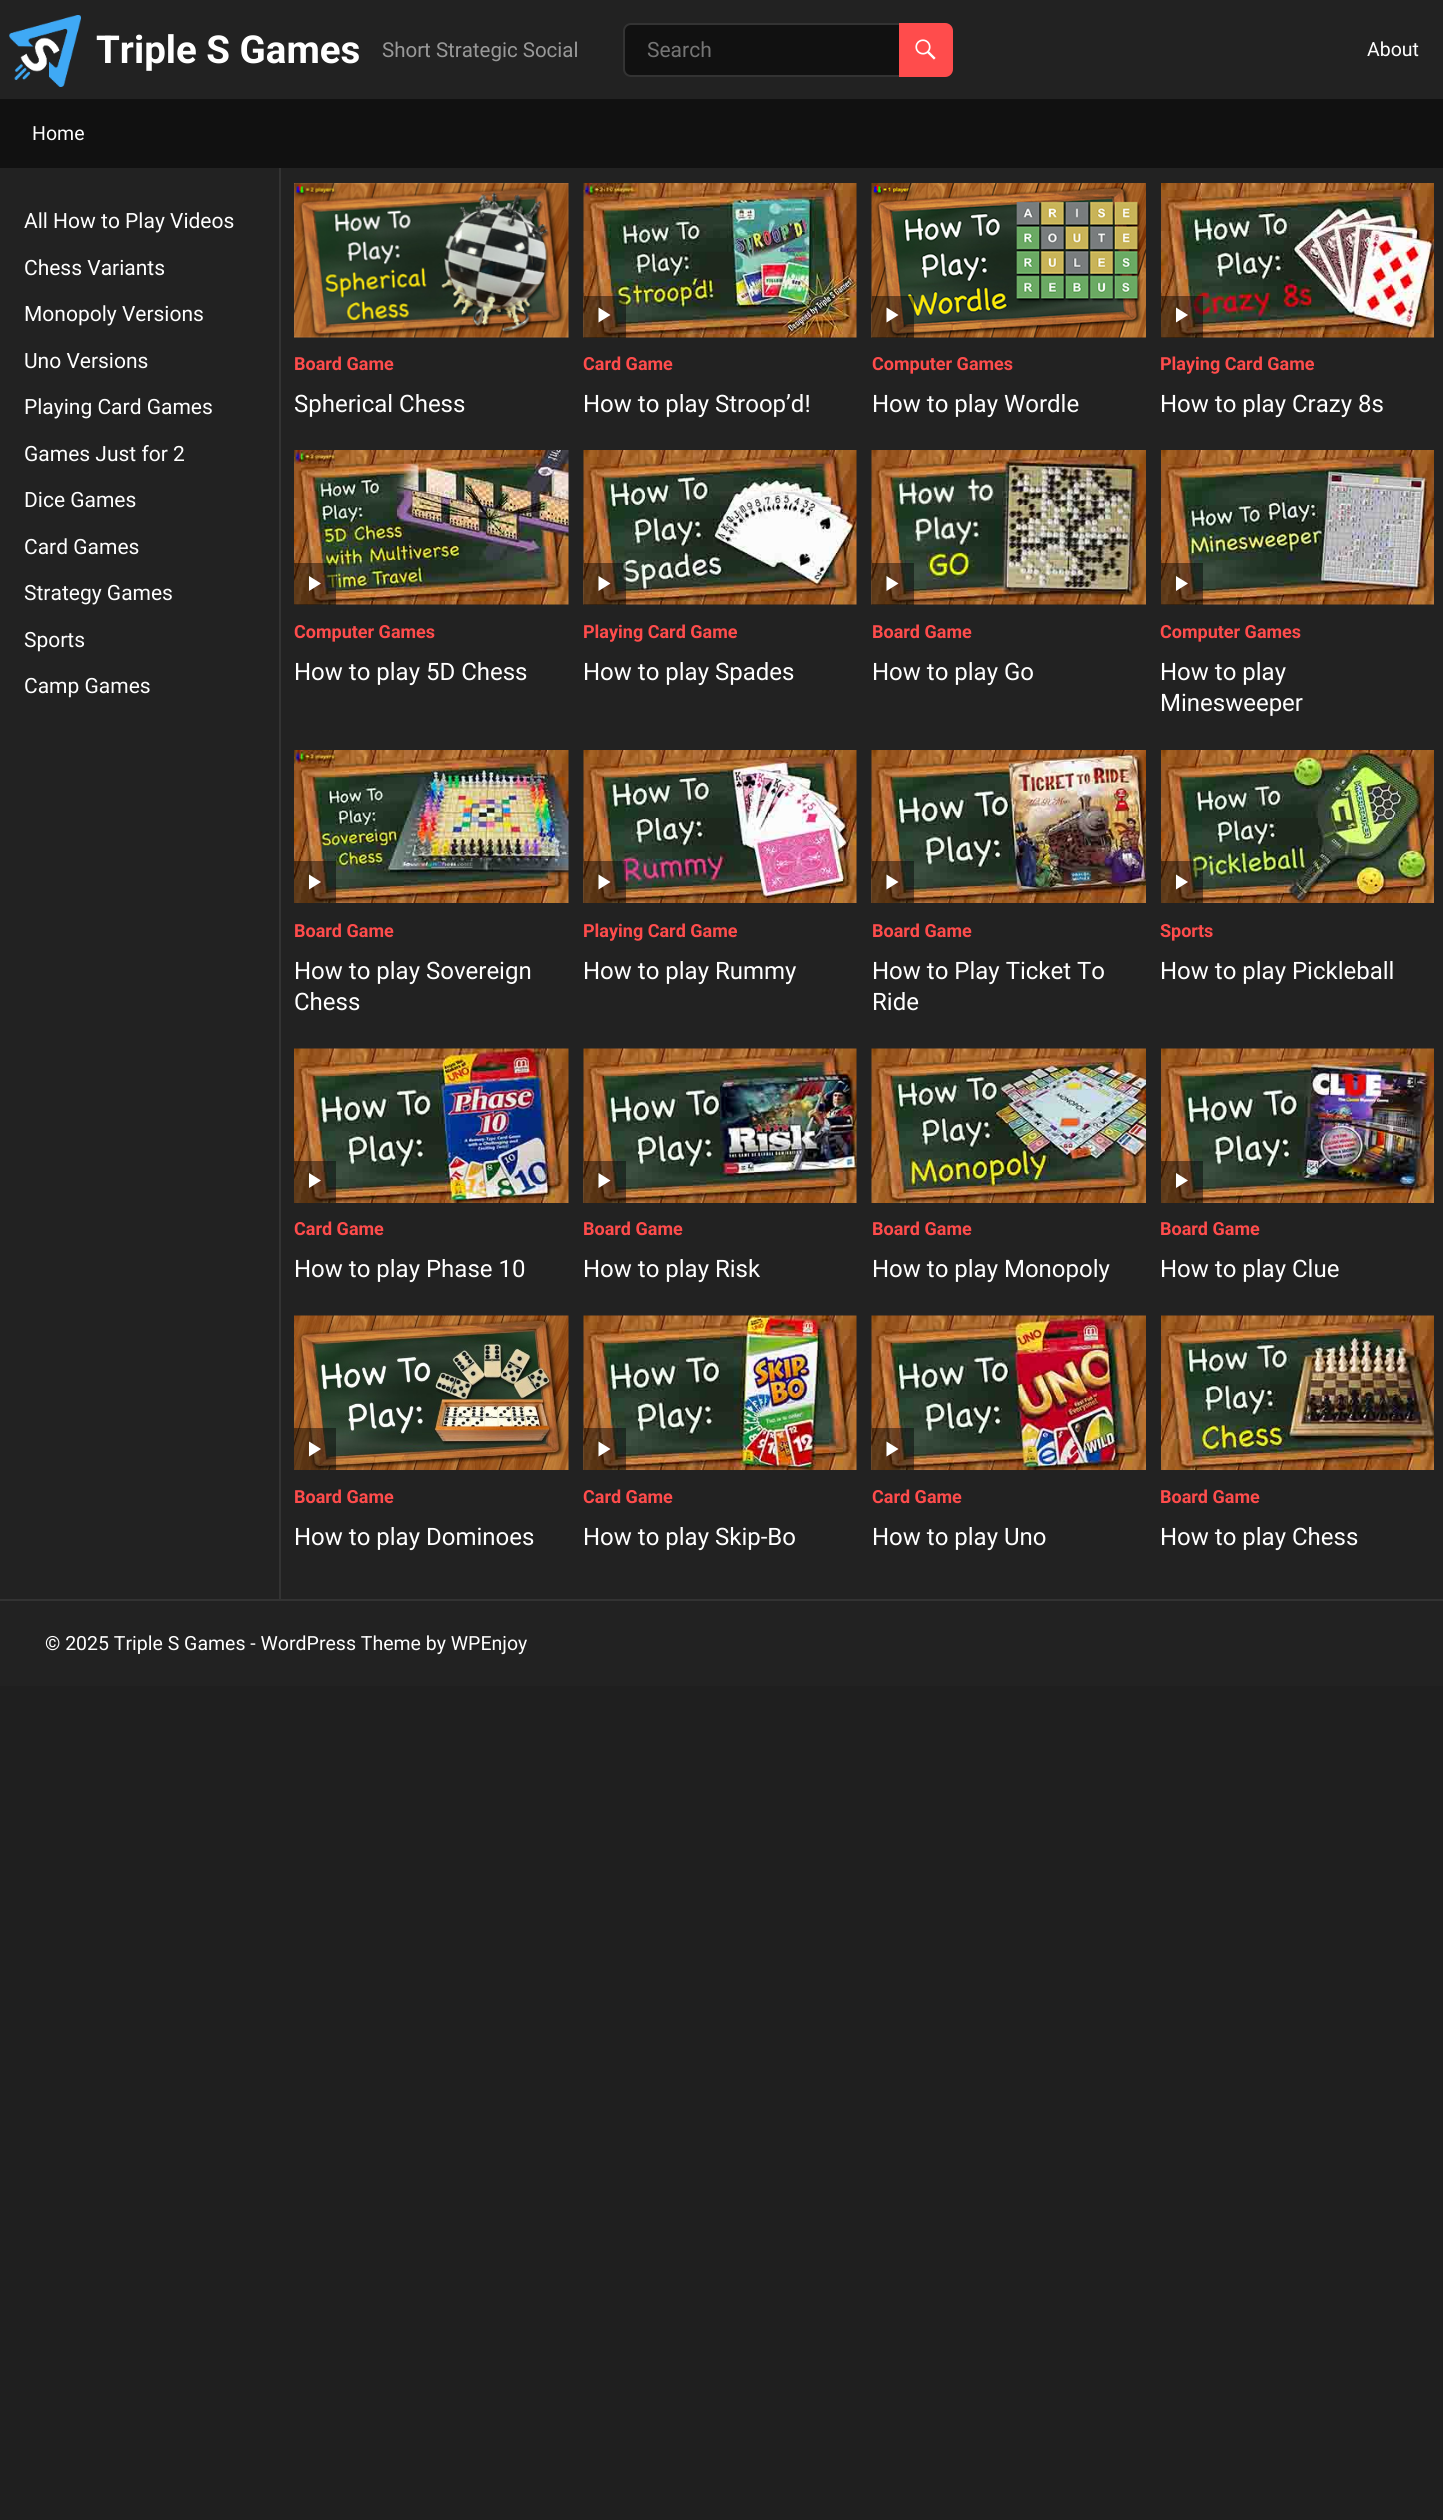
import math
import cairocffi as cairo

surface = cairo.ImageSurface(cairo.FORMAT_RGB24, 1443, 2520)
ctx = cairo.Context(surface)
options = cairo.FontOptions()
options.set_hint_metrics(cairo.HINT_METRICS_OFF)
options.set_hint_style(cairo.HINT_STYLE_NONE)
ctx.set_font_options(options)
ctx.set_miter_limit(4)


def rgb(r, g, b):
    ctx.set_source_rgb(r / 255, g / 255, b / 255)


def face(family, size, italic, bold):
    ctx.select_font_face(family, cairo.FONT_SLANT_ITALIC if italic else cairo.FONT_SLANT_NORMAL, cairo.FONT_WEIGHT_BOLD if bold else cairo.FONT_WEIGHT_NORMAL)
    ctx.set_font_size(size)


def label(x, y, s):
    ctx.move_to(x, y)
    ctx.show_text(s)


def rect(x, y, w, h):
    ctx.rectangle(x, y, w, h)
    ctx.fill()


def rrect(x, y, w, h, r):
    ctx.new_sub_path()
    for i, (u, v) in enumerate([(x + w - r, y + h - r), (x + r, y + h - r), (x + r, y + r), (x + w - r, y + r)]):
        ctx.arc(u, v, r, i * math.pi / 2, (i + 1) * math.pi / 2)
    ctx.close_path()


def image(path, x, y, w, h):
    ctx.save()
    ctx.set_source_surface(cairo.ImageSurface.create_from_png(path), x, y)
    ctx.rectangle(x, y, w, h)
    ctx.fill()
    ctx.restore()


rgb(31, 31, 31)
ctx.paint()
rgb(34, 34, 34)
rect(0, 0, 1443, 1686)
image('image0.png', 9, 15, 72, 72)
face('Roboto', 38.5, 0, 1)
rgb(255, 255, 255)
label(96, 63, 'Triple S Games')
face('Roboto', 20.5, 0, 0)
rgb(153, 153, 153)
label(382, 57, 'Short Strategic Social')
rgb(17, 17, 17)
rrect(624, 24, 328, 52, 7)
ctx.fill_preserve()
rgb(51, 51, 51)
ctx.stroke()
face('Roboto', 21, 0, 0)
rgb(117, 117, 117)
label(647, 57, 'Search')
rgb(255, 76, 76)
ctx.new_path()
ctx.move_to(899, 23)
ctx.line_to(945, 23)
ctx.curve_to(949.5, 23, 953, 26.5, 953, 31)
ctx.line_to(953, 69)
ctx.curve_to(953, 73.5, 949.5, 77, 945, 77)
ctx.line_to(899, 77)
ctx.close_path()
ctx.fill()
image('image1.png', 915, 39, 21, 21)
face('Roboto', 19.5, 0, 0)
rgb(255, 255, 255)
label(1367, 56, 'About')
rgb(17, 17, 17)
rect(0, 99, 1443, 69)
rgb(255, 255, 255)
label(32, 140, 'Home')
rgb(51, 51, 51)
rect(279, 168, 2, 1431)
face('Roboto', 21, 0, 0)
rgb(255, 255, 255)
label(24, 228, 'All How to Play Videos')
label(24, 275, 'Chess Variants')
label(24, 321, 'Monopoly Versions')
label(24, 368, 'Uno Versions')
label(24, 414, 'Playing Card Games')
label(24, 461, 'Games Just for 2')
label(24, 507, 'Dice Games')
label(24, 554, 'Card Games')
label(24, 600, 'Strategy Games')
label(24, 647, 'Sports')
label(24, 693, 'Camp Games')
image('image2.png', 294, 183, 275, 155)
face('Roboto', 18, 0, 1)
rgb(255, 76, 76)
label(294, 370, 'Board Game')
face('Roboto', 24, 0, 0)
rgb(255, 255, 255)
label(294, 412, 'Spherical Chess')
image('image3.png', 583, 183, 274, 155)
ctx.set_source_rgba(0, 0, 0, 0.45)
rect(584, 296, 42, 42)
rgb(255, 255, 255)
ctx.new_path()
ctx.move_to(598.5, 307.5)
ctx.line_to(610.5, 315)
ctx.line_to(598.5, 322.5)
ctx.close_path()
ctx.fill()
face('Roboto', 18, 0, 1)
rgb(255, 76, 76)
label(583, 370, 'Card Game')
face('Roboto', 24, 0, 0)
rgb(255, 255, 255)
label(583, 412, 'How to play Stroop’d!')
image('image4.png', 871, 183, 275, 155)
ctx.set_source_rgba(0, 0, 0, 0.45)
rect(872, 296, 42, 42)
rgb(255, 255, 255)
ctx.new_path()
ctx.move_to(886.5, 307.5)
ctx.line_to(898.5, 315)
ctx.line_to(886.5, 322.5)
ctx.close_path()
ctx.fill()
face('Roboto', 18, 0, 1)
rgb(255, 76, 76)
label(872, 370, 'Computer Games')
face('Roboto', 24, 0, 0)
rgb(255, 255, 255)
label(872, 412, 'How to play Wordle')
image('image5.png', 1161, 183, 273, 155)
ctx.set_source_rgba(0, 0, 0, 0.45)
rect(1161, 296, 42, 42)
rgb(255, 255, 255)
ctx.new_path()
ctx.move_to(1176, 307.5)
ctx.line_to(1188, 315)
ctx.line_to(1176, 322.5)
ctx.close_path()
ctx.fill()
face('Roboto', 18, 0, 1)
rgb(255, 76, 76)
label(1160, 370, 'Playing Card Game')
face('Roboto', 24, 0, 0)
rgb(255, 255, 255)
label(1160, 412, 'How to play Crazy 8s')
image('image6.png', 294, 450, 275, 155)
ctx.set_source_rgba(0, 0, 0, 0.45)
rect(294, 563, 42, 42)
rgb(255, 255, 255)
ctx.new_path()
ctx.move_to(309, 576)
ctx.line_to(321, 583.5)
ctx.line_to(309, 591)
ctx.close_path()
ctx.fill()
face('Roboto', 18, 0, 1)
rgb(255, 76, 76)
label(294, 638, 'Computer Games')
face('Roboto', 24, 0, 0)
rgb(255, 255, 255)
label(294, 680, 'How to play 5D Chess')
image('image7.png', 583, 450, 274, 155)
ctx.set_source_rgba(0, 0, 0, 0.45)
rect(584, 563, 42, 42)
rgb(255, 255, 255)
ctx.new_path()
ctx.move_to(598.5, 576)
ctx.line_to(610.5, 583.5)
ctx.line_to(598.5, 591)
ctx.close_path()
ctx.fill()
face('Roboto', 18, 0, 1)
rgb(255, 76, 76)
label(583, 638, 'Playing Card Game')
face('Roboto', 24, 0, 0)
rgb(255, 255, 255)
label(583, 680, 'How to play Spades')
image('image8.png', 871, 450, 275, 155)
ctx.set_source_rgba(0, 0, 0, 0.45)
rect(872, 563, 42, 42)
rgb(255, 255, 255)
ctx.new_path()
ctx.move_to(886.5, 576)
ctx.line_to(898.5, 583.5)
ctx.line_to(886.5, 591)
ctx.close_path()
ctx.fill()
face('Roboto', 18, 0, 1)
rgb(255, 76, 76)
label(872, 638, 'Board Game')
face('Roboto', 24, 0, 0)
rgb(255, 255, 255)
label(872, 680, 'How to play Go')
image('image9.png', 1161, 450, 273, 155)
ctx.set_source_rgba(0, 0, 0, 0.45)
rect(1161, 563, 42, 42)
rgb(255, 255, 255)
ctx.new_path()
ctx.move_to(1176, 576)
ctx.line_to(1188, 583.5)
ctx.line_to(1176, 591)
ctx.close_path()
ctx.fill()
face('Roboto', 18, 0, 1)
rgb(255, 76, 76)
label(1160, 638, 'Computer Games')
face('Roboto', 24, 0, 0)
rgb(255, 255, 255)
label(1160, 680, 'How to play')
label(1160, 711, 'Minesweeper')
image('image10.png', 294, 750, 275, 153)
ctx.set_source_rgba(0, 0, 0, 0.45)
rect(294, 861, 42, 42)
rgb(255, 255, 255)
ctx.new_path()
ctx.move_to(309, 874.5)
ctx.line_to(321, 882)
ctx.line_to(309, 889.5)
ctx.close_path()
ctx.fill()
face('Roboto', 18, 0, 1)
rgb(255, 76, 76)
label(294, 937, 'Board Game')
face('Roboto', 24, 0, 0)
rgb(255, 255, 255)
label(294, 979, 'How to play Sovereign')
label(294, 1010, 'Chess')
image('image11.png', 583, 750, 274, 153)
ctx.set_source_rgba(0, 0, 0, 0.45)
rect(584, 861, 42, 42)
rgb(255, 255, 255)
ctx.new_path()
ctx.move_to(598.5, 874.5)
ctx.line_to(610.5, 882)
ctx.line_to(598.5, 889.5)
ctx.close_path()
ctx.fill()
face('Roboto', 18, 0, 1)
rgb(255, 76, 76)
label(583, 937, 'Playing Card Game')
face('Roboto', 24, 0, 0)
rgb(255, 255, 255)
label(583, 979, 'How to play Rummy')
image('image12.png', 871, 750, 275, 153)
ctx.set_source_rgba(0, 0, 0, 0.45)
rect(872, 861, 42, 42)
rgb(255, 255, 255)
ctx.new_path()
ctx.move_to(886.5, 874.5)
ctx.line_to(898.5, 882)
ctx.line_to(886.5, 889.5)
ctx.close_path()
ctx.fill()
face('Roboto', 18, 0, 1)
rgb(255, 76, 76)
label(872, 937, 'Board Game')
face('Roboto', 24, 0, 0)
rgb(255, 255, 255)
label(872, 979, 'How to Play Ticket To')
label(872, 1010, 'Ride')
image('image13.png', 1161, 750, 273, 153)
ctx.set_source_rgba(0, 0, 0, 0.45)
rect(1161, 861, 42, 42)
rgb(255, 255, 255)
ctx.new_path()
ctx.move_to(1176, 874.5)
ctx.line_to(1188, 882)
ctx.line_to(1176, 889.5)
ctx.close_path()
ctx.fill()
face('Roboto', 18, 0, 1)
rgb(255, 76, 76)
label(1160, 937, 'Sports')
face('Roboto', 24, 0, 0)
rgb(255, 255, 255)
label(1160, 979, 'How to play Pickleball')
image('image14.png', 294, 1048, 275, 155)
ctx.set_source_rgba(0, 0, 0, 0.45)
rect(294, 1161, 42, 42)
rgb(255, 255, 255)
ctx.new_path()
ctx.move_to(309, 1173)
ctx.line_to(321, 1180.5)
ctx.line_to(309, 1188)
ctx.close_path()
ctx.fill()
face('Roboto', 18, 0, 1)
rgb(255, 76, 76)
label(294, 1235, 'Card Game')
face('Roboto', 24, 0, 0)
rgb(255, 255, 255)
label(294, 1277, 'How to play Phase 10')
image('image15.png', 583, 1048, 274, 155)
ctx.set_source_rgba(0, 0, 0, 0.45)
rect(584, 1161, 42, 42)
rgb(255, 255, 255)
ctx.new_path()
ctx.move_to(598.5, 1173)
ctx.line_to(610.5, 1180.5)
ctx.line_to(598.5, 1188)
ctx.close_path()
ctx.fill()
face('Roboto', 18, 0, 1)
rgb(255, 76, 76)
label(583, 1235, 'Board Game')
face('Roboto', 24, 0, 0)
rgb(255, 255, 255)
label(583, 1277, 'How to play Risk')
image('image16.png', 871, 1048, 275, 155)
face('Roboto', 18, 0, 1)
rgb(255, 76, 76)
label(872, 1235, 'Board Game')
face('Roboto', 24, 0, 0)
rgb(255, 255, 255)
label(872, 1277, 'How to play Monopoly')
image('image17.png', 1161, 1048, 273, 155)
ctx.set_source_rgba(0, 0, 0, 0.45)
rect(1161, 1161, 42, 42)
rgb(255, 255, 255)
ctx.new_path()
ctx.move_to(1176, 1173)
ctx.line_to(1188, 1180.5)
ctx.line_to(1176, 1188)
ctx.close_path()
ctx.fill()
face('Roboto', 18, 0, 1)
rgb(255, 76, 76)
label(1160, 1235, 'Board Game')
face('Roboto', 24, 0, 0)
rgb(255, 255, 255)
label(1160, 1277, 'How to play Clue')
image('image18.png', 294, 1315, 275, 155)
ctx.set_source_rgba(0, 0, 0, 0.45)
rect(294, 1428, 42, 42)
rgb(255, 255, 255)
ctx.new_path()
ctx.move_to(309, 1441.5)
ctx.line_to(321, 1449)
ctx.line_to(309, 1456.5)
ctx.close_path()
ctx.fill()
face('Roboto', 18, 0, 1)
rgb(255, 76, 76)
label(294, 1503, 'Board Game')
face('Roboto', 24, 0, 0)
rgb(255, 255, 255)
label(294, 1545, 'How to play Dominoes')
image('image19.png', 583, 1315, 274, 155)
ctx.set_source_rgba(0, 0, 0, 0.45)
rect(584, 1428, 42, 42)
rgb(255, 255, 255)
ctx.new_path()
ctx.move_to(598.5, 1441.5)
ctx.line_to(610.5, 1449)
ctx.line_to(598.5, 1456.5)
ctx.close_path()
ctx.fill()
face('Roboto', 18, 0, 1)
rgb(255, 76, 76)
label(583, 1503, 'Card Game')
face('Roboto', 24, 0, 0)
rgb(255, 255, 255)
label(583, 1545, 'How to play Skip-Bo')
image('image20.png', 871, 1315, 275, 155)
ctx.set_source_rgba(0, 0, 0, 0.45)
rect(872, 1428, 42, 42)
rgb(255, 255, 255)
ctx.new_path()
ctx.move_to(886.5, 1441.5)
ctx.line_to(898.5, 1449)
ctx.line_to(886.5, 1456.5)
ctx.close_path()
ctx.fill()
face('Roboto', 18, 0, 1)
rgb(255, 76, 76)
label(872, 1503, 'Card Game')
face('Roboto', 24, 0, 0)
rgb(255, 255, 255)
label(872, 1545, 'How to play Uno')
image('image21.png', 1161, 1315, 273, 155)
face('Roboto', 18, 0, 1)
rgb(255, 76, 76)
label(1160, 1503, 'Board Game')
face('Roboto', 24, 0, 0)
rgb(255, 255, 255)
label(1160, 1545, 'How to play Chess')
rgb(51, 51, 51)
rect(0, 1599, 1443, 2)
face('Roboto', 19.5, 0, 0)
rgb(255, 255, 255)
label(45, 1650, '© 2025 Triple S Games - WordPress Theme by WPEnjoy')
surface.write_to_png('render.png')
